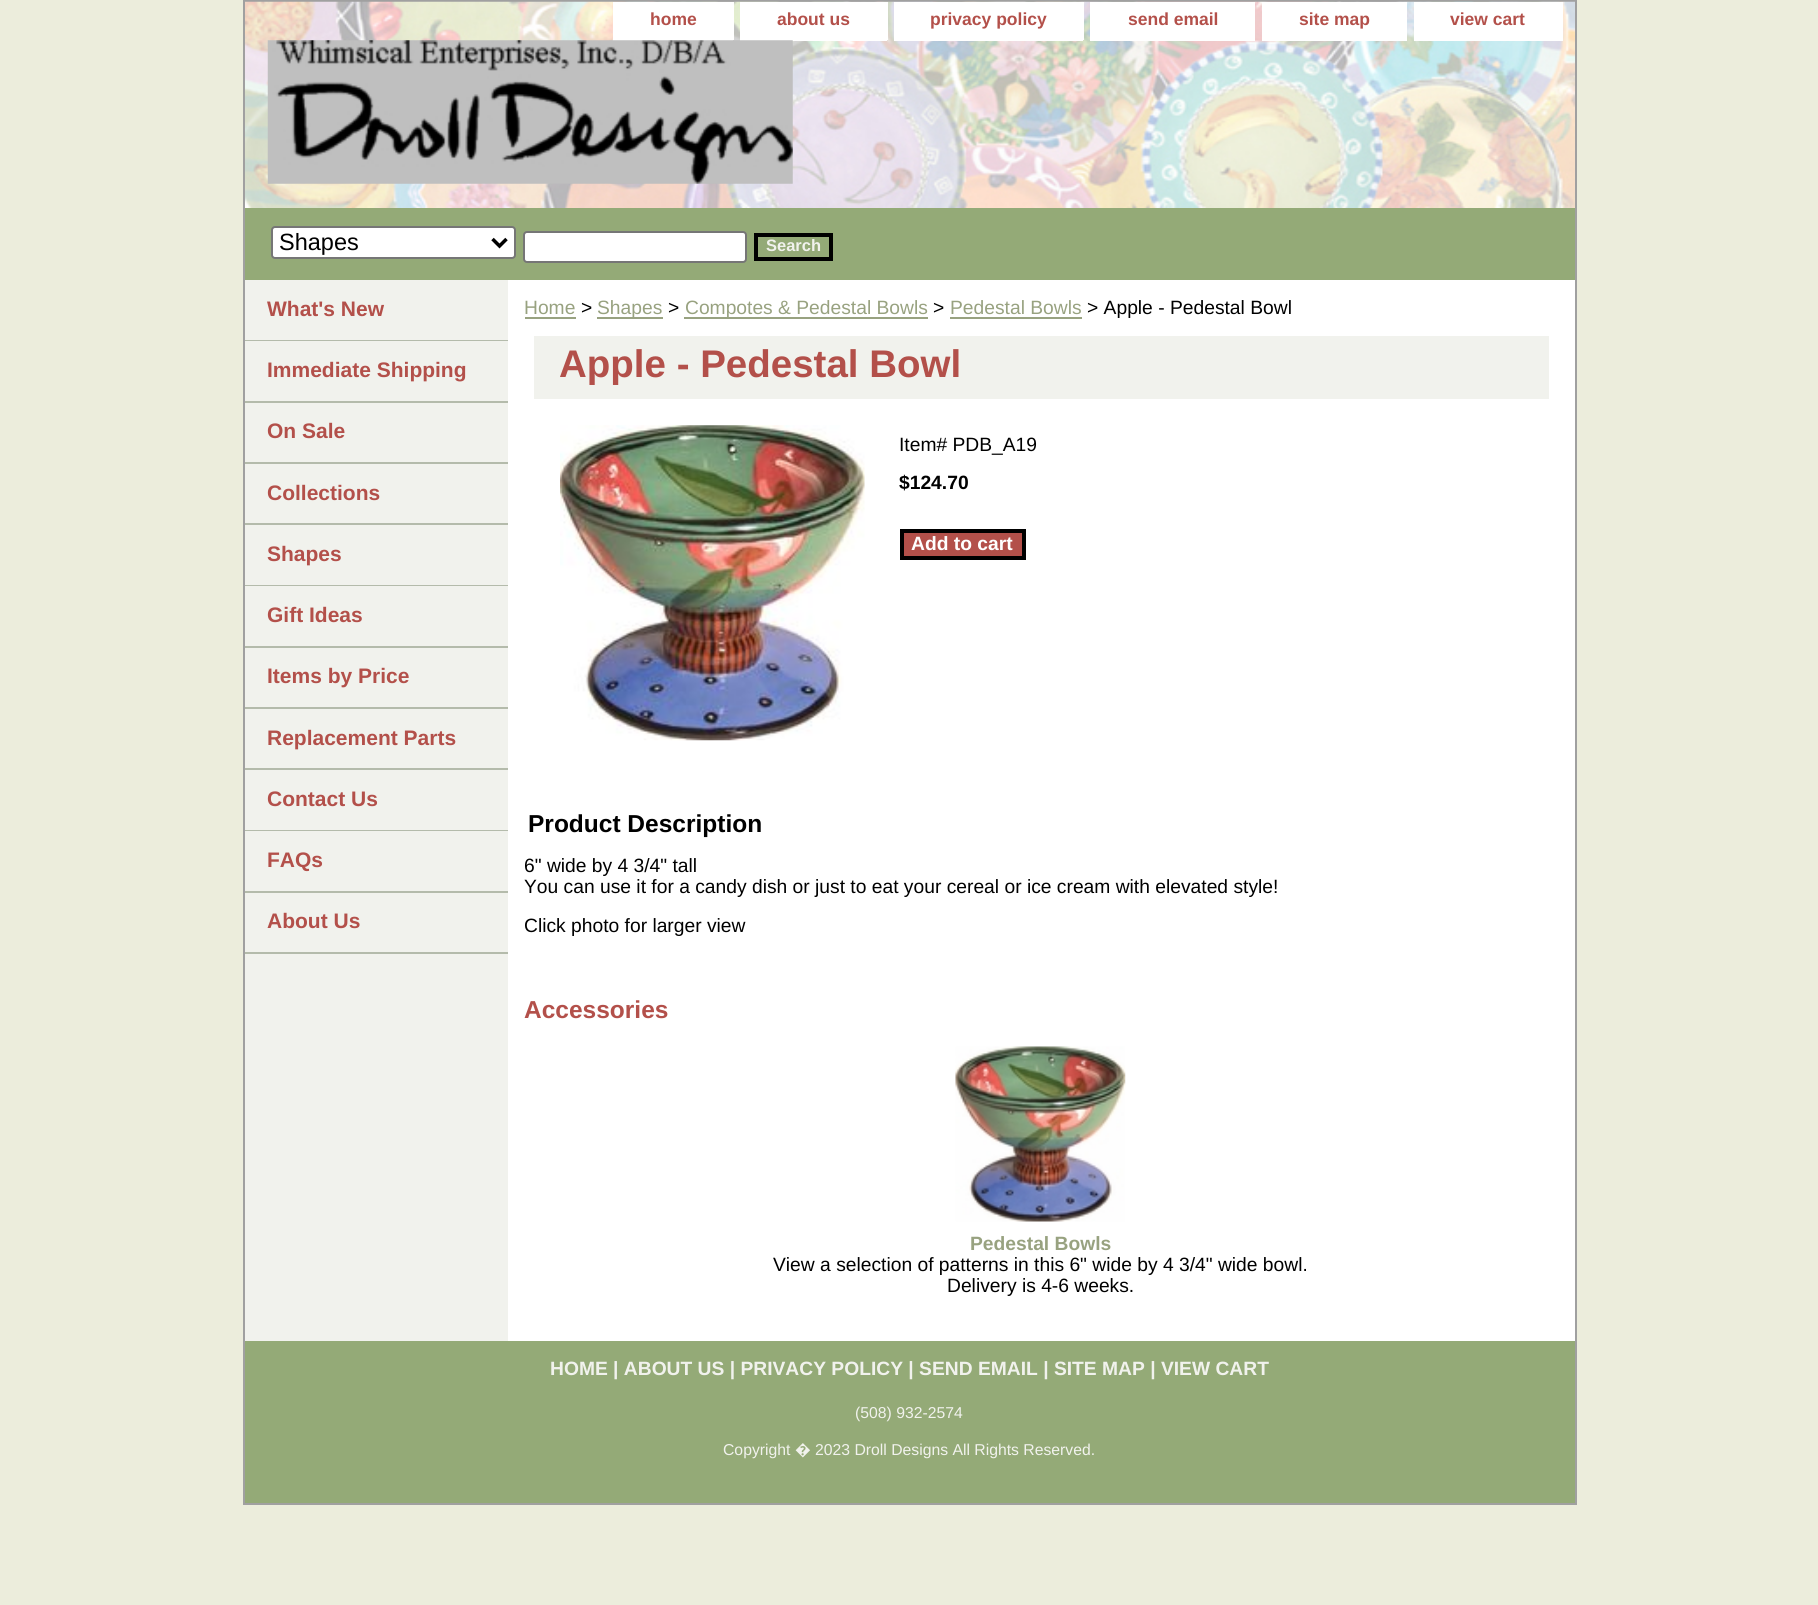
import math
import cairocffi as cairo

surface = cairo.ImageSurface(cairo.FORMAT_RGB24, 1818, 1605)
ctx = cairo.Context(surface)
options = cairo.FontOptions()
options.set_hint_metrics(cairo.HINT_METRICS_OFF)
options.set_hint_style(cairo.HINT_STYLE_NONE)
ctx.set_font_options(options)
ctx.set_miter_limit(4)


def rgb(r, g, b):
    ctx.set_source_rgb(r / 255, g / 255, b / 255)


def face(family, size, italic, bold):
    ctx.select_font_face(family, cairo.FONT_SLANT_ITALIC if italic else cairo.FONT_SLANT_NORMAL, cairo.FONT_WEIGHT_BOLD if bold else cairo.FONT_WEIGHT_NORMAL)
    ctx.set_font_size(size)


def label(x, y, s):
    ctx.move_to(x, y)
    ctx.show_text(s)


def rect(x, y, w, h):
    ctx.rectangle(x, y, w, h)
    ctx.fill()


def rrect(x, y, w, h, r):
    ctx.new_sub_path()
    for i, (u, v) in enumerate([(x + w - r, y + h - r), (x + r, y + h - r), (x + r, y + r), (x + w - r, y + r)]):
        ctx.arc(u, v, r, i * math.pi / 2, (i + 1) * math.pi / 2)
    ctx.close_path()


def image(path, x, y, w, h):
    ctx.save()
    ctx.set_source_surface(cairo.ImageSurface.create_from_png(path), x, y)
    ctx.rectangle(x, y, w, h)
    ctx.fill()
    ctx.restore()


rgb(236, 237, 220)
ctx.paint()
rgb(255, 255, 255)
rect(508, 280, 1067, 1061)
ctx.rectangle(244, 1, 1332, 1503)
rgb(160, 160, 160)
ctx.stroke()
image('image0.png', 245, 1, 1330, 207)
rgb(255, 255, 255)
rect(613, 2, 119, 37)
rect(732, 2, 2, 38)
rect(613, 39, 120, 2)
face('Liberation Sans', 17.5, 0, 1)
rgb(179, 80, 74)
label(650, 25, 'home')
rgb(255, 255, 255)
rect(740, 2, 146, 37)
rect(886, 2, 2, 38)
rect(740, 39, 147, 2)
rgb(179, 80, 74)
label(777, 25, 'about us')
rgb(255, 255, 255)
rect(894, 2, 188, 37)
rect(1082, 2, 2, 38)
rect(894, 39, 189, 2)
rgb(179, 80, 74)
label(930, 25, 'privacy policy')
rgb(255, 255, 255)
rect(1090, 2, 165, 39)
rgb(179, 80, 74)
label(1128, 25, 'send email')
rgb(255, 255, 255)
rect(1262, 2, 145, 39)
rgb(179, 80, 74)
label(1299, 25, 'site map')
rgb(255, 255, 255)
rect(1414, 2, 149, 39)
rgb(179, 80, 74)
label(1450, 25, 'view cart')
image('image1.png', 267, 40, 526, 144)
rgb(148, 170, 119)
rect(245, 208, 1330, 72)
rgb(255, 255, 255)
rrect(272, 227, 243, 31, 3)
ctx.fill_preserve()
rgb(118, 118, 118)
ctx.stroke()
ctx.new_path()
ctx.move_to(492.5, 239)
ctx.line_to(499.5, 246)
ctx.line_to(506.5, 239)
rgb(0, 0, 0)
ctx.set_line_width(3.5)
ctx.stroke()
face('Liberation Sans', 23.5, 0, 0)
label(279, 250, 'Shapes')
rgb(255, 255, 255)
rrect(524, 232, 222, 30, 3)
ctx.fill_preserve()
rgb(118, 118, 118)
ctx.set_line_width(2)
ctx.stroke()
ctx.rectangle(756, 235, 75, 24)
rgb(0, 0, 0)
ctx.set_line_width(4)
ctx.stroke()
face('Liberation Sans', 16.5, 0, 1)
rgb(241, 242, 237)
label(766, 251, 'Search')
rect(245, 280, 263, 1061)
rgb(180, 187, 171)
rect(245, 340, 263, 1)
face('Liberation Sans', 21, 0, 1)
rgb(179, 80, 74)
label(267, 316, 'What\'s New')
rgb(180, 187, 171)
rect(245, 401, 263, 2)
rgb(179, 80, 74)
label(267, 377, 'Immediate Shipping')
rgb(180, 187, 171)
rect(245, 462, 263, 2)
rgb(179, 80, 74)
label(267, 438, 'On Sale')
rgb(180, 187, 171)
rect(245, 523, 263, 2)
rgb(179, 80, 74)
label(267, 500, 'Collections')
rgb(180, 187, 171)
rect(245, 585, 263, 1)
rgb(179, 80, 74)
label(267, 561, 'Shapes')
rgb(180, 187, 171)
rect(245, 646, 263, 2)
rgb(179, 80, 74)
label(267, 622, 'Gift Ideas')
rgb(180, 187, 171)
rect(245, 707, 263, 2)
rgb(179, 80, 74)
label(267, 683, 'Items by Price')
rgb(180, 187, 171)
rect(245, 768, 263, 2)
rgb(179, 80, 74)
label(267, 745, 'Replacement Parts')
rgb(180, 187, 171)
rect(245, 830, 263, 1)
rgb(179, 80, 74)
label(267, 806, 'Contact Us')
rgb(180, 187, 171)
rect(245, 891, 263, 2)
rgb(179, 80, 74)
label(267, 867, 'FAQs')
rgb(180, 187, 171)
rect(245, 952, 263, 2)
rgb(179, 80, 74)
label(267, 928, 'About Us')
face('Liberation Sans', 19.25, 0, 0)
rgb(152, 162, 128)
label(524, 314, 'Home')
rect(525, 317, 51, 2)
rgb(0, 0, 0)
label(581, 314, '>')
rgb(152, 162, 128)
rect(597, 317, 66, 2)
label(597, 314, 'Shapes')
rgb(0, 0, 0)
label(668, 314, '>')
rgb(152, 162, 128)
rect(684, 317, 244, 2)
label(685, 314, 'Compotes & Pedestal Bowls')
rgb(0, 0, 0)
label(933, 314, '>')
rgb(152, 162, 128)
label(950, 314, 'Pedestal Bowls')
rect(950, 317, 132, 2)
rgb(0, 0, 0)
label(1087, 314, '> Apple - Pedestal Bowl')
rgb(241, 242, 237)
rect(534, 336, 1015, 63)
face('Liberation Sans', 38.5, 0, 1)
rgb(179, 80, 74)
label(559, 377, 'Apple - Pedestal Bowl')
image('image2.png', 560, 425, 305, 316)
face('Liberation Sans', 19.25, 0, 0)
rgb(0, 0, 0)
label(899, 451, 'Item# PDB_A19')
face('Liberation Sans', 19.25, 0, 1)
label(899, 489, '$124.70')
rgb(179, 80, 74)
ctx.rectangle(902, 531, 122, 27)
ctx.fill_preserve()
rgb(0, 0, 0)
ctx.stroke()
rgb(255, 255, 255)
label(911, 550, 'Add to cart')
face('Liberation Sans', 24.5, 0, 1)
rgb(0, 0, 0)
label(528, 832, 'Product Description')
face('Liberation Sans', 19.25, 0, 0)
label(524, 872, '6" wide by 4 3/4" tall')
label(524, 893, 'You can use it for a candy dish or just to eat your cereal or ice cream with elevated style!')
label(524, 932, 'Click photo for larger view')
face('Liberation Sans', 24.5, 0, 1)
rgb(179, 80, 74)
label(524, 1018, 'Accessories')
image('image3.png', 955, 1046, 171, 176)
face('Liberation Sans', 19.25, 0, 1)
rgb(152, 162, 128)
label(970, 1250, 'Pedestal Bowls')
face('Liberation Sans', 19.25, 0, 0)
rgb(0, 0, 0)
label(773, 1271, 'View a selection of patterns in this 6" wide by 4 3/4" wide bowl.')
label(947, 1292, 'Delivery is 4-6 weeks.')
rgb(148, 170, 119)
rect(245, 1341, 1330, 162)
face('Liberation Sans', 19.25, 0, 1)
rgb(241, 242, 237)
label(550, 1375, 'HOME | ABOUT US | PRIVACY POLICY | SEND EMAIL | SITE MAP | VIEW CART')
face('Liberation Sans', 15.75, 0, 0)
label(855, 1418, '(508) 932-2574')
label(723, 1455, 'Copyright')
face('Noto Sans', 15.75, 0, 0)
label(795, 1455, '�')
face('Liberation Sans', 15.75, 0, 0)
label(815, 1455, '2023 Droll Designs All Rights Reserved.')
surface.write_to_png('render.png')
